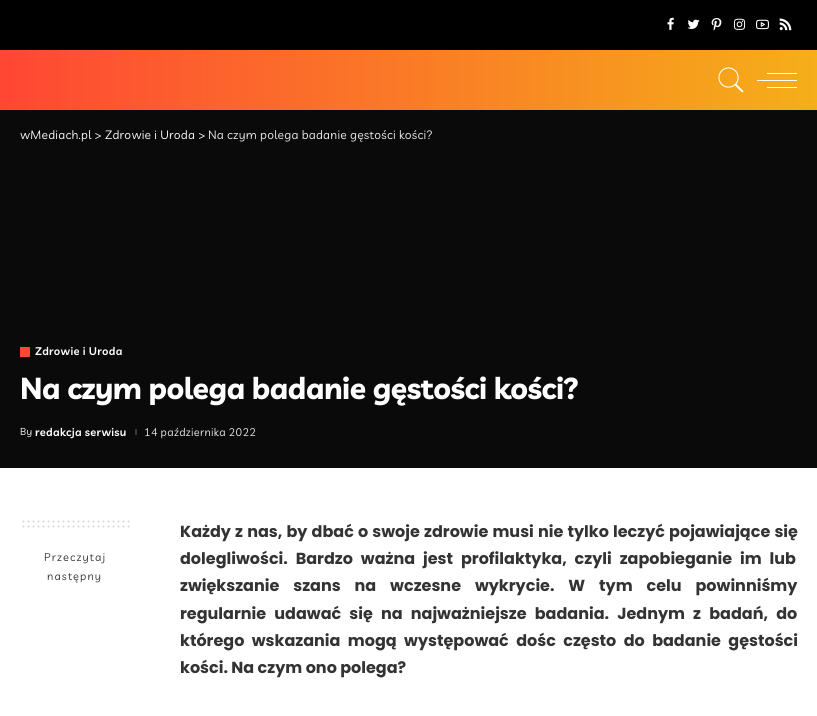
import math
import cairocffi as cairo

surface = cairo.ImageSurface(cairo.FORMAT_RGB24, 817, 716)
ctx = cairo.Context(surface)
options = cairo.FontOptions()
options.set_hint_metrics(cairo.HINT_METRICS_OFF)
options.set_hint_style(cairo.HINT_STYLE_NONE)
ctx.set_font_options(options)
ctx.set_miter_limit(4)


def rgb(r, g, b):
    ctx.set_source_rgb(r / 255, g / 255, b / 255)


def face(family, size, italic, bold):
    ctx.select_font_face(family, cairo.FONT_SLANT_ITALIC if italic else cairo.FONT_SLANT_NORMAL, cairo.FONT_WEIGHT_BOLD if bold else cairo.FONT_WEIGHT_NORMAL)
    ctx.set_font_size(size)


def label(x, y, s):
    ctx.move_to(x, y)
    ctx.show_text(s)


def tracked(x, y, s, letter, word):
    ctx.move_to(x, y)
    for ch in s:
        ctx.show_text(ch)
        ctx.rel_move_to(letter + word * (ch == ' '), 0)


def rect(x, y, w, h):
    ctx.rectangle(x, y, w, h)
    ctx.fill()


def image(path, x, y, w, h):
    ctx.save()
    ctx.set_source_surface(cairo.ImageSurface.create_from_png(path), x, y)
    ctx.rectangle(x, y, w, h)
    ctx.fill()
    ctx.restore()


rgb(255, 255, 255)
ctx.paint()
rgb(0, 0, 0)
rect(0, 0, 817, 50)
image('image0.png', 667, 17, 7, 13)
image('image1.png', 687, 19, 13, 10)
image('image2.png', 711, 18, 11, 13)
image('image3.png', 733, 18, 13, 12)
image('image4.png', 756, 19, 13, 11)
image('image5.png', 779, 18, 13, 13)
gradient = cairo.LinearGradient(0, 80, 817, 80)
gradient.add_color_stop_rgba(0, 1, 0.278, 0.204, 1)
gradient.add_color_stop_rgba(1, 0.961, 0.686, 0.098, 1)
ctx.set_source(gradient)
rect(0, 50, 817, 60)
image('image6.png', 718, 67, 26, 26)
rgb(255, 255, 255)
rect(757, 80, 40, 1)
rect(767, 73, 30, 1)
rect(767, 87, 30, 1)
rgb(10, 10, 10)
rect(0, 110, 817, 358)
face('Livvic', 12, 0, 0)
rgb(255, 255, 255)
tracked(20, 139, 'wMediach.pl > Zdrowie i Uroda >', 0.25, 0)
rgb(239, 239, 239)
tracked(208, 139, 'Na czym polega badanie gęstości kości?', 0.25, 0)
rgb(255, 71, 52)
rect(20, 347, 10, 10)
face('Livvic SemiBold', 11, 0, 0)
rgb(255, 255, 255)
tracked(35, 355, 'Zdrowie i Uroda', 0.3, 0)
face('Livvic', 30, 0, 1)
tracked(20, 399, 'Na czym polega badanie gęstości kości?', -0.5, 0)
face('Livvic', 10, 0, 0)
tracked(20, 435, 'By', 0.3, 0)
face('Livvic SemiBold', 11, 0, 0)
tracked(35, 436, 'redakcja serwisu', 0.3, 0)
rgb(56, 56, 56)
rect(135, 429, 2, 6)
face('Livvic', 11, 0, 0)
rgb(239, 239, 239)
tracked(144, 436, '14 października 2022', 0.3, 0)
ctx.new_path()
ctx.move_to(23.5, 521.5)
ctx.line_to(128.7, 521.5)
rgb(214, 214, 214)
ctx.set_line_cap(cairo.LINE_CAP_ROUND)
ctx.set_dash([0, 5])
ctx.stroke()
ctx.new_path()
ctx.move_to(23.5, 526.5)
ctx.line_to(128.7, 526.5)
ctx.stroke()
rgb(51, 51, 51)
tracked(44, 561, 'Przeczytaj', 1.1, 0)
tracked(47, 580, 'następny', 1.1, 0)
face('Poppins', 16, 0, 1)
tracked(180, 537, 'Każdy z nas, by dbać o swoje zdrowie musi nie tylko leczyć pojawiające się', 0, 0.75)
tracked(180, 564, 'dolegliwości. Bardzo ważna jest profilaktyka, czyli zapobieganie im lub', 0, 4.5)
tracked(180, 591, 'zwiększanie szans na wczesne wykrycie. W tym celu powinniśmy', 0, 10.5)
tracked(180, 619, 'regularnie udawać się na najważniejsze badania. Jednym z badań, do', 0, 4.75)
tracked(180, 646, 'którego wskazania mogą występować dośc często do badanie gęstości', 0, 4)
label(180, 673, 'kości. Na czym ono polega?')
surface.write_to_png('render.png')
